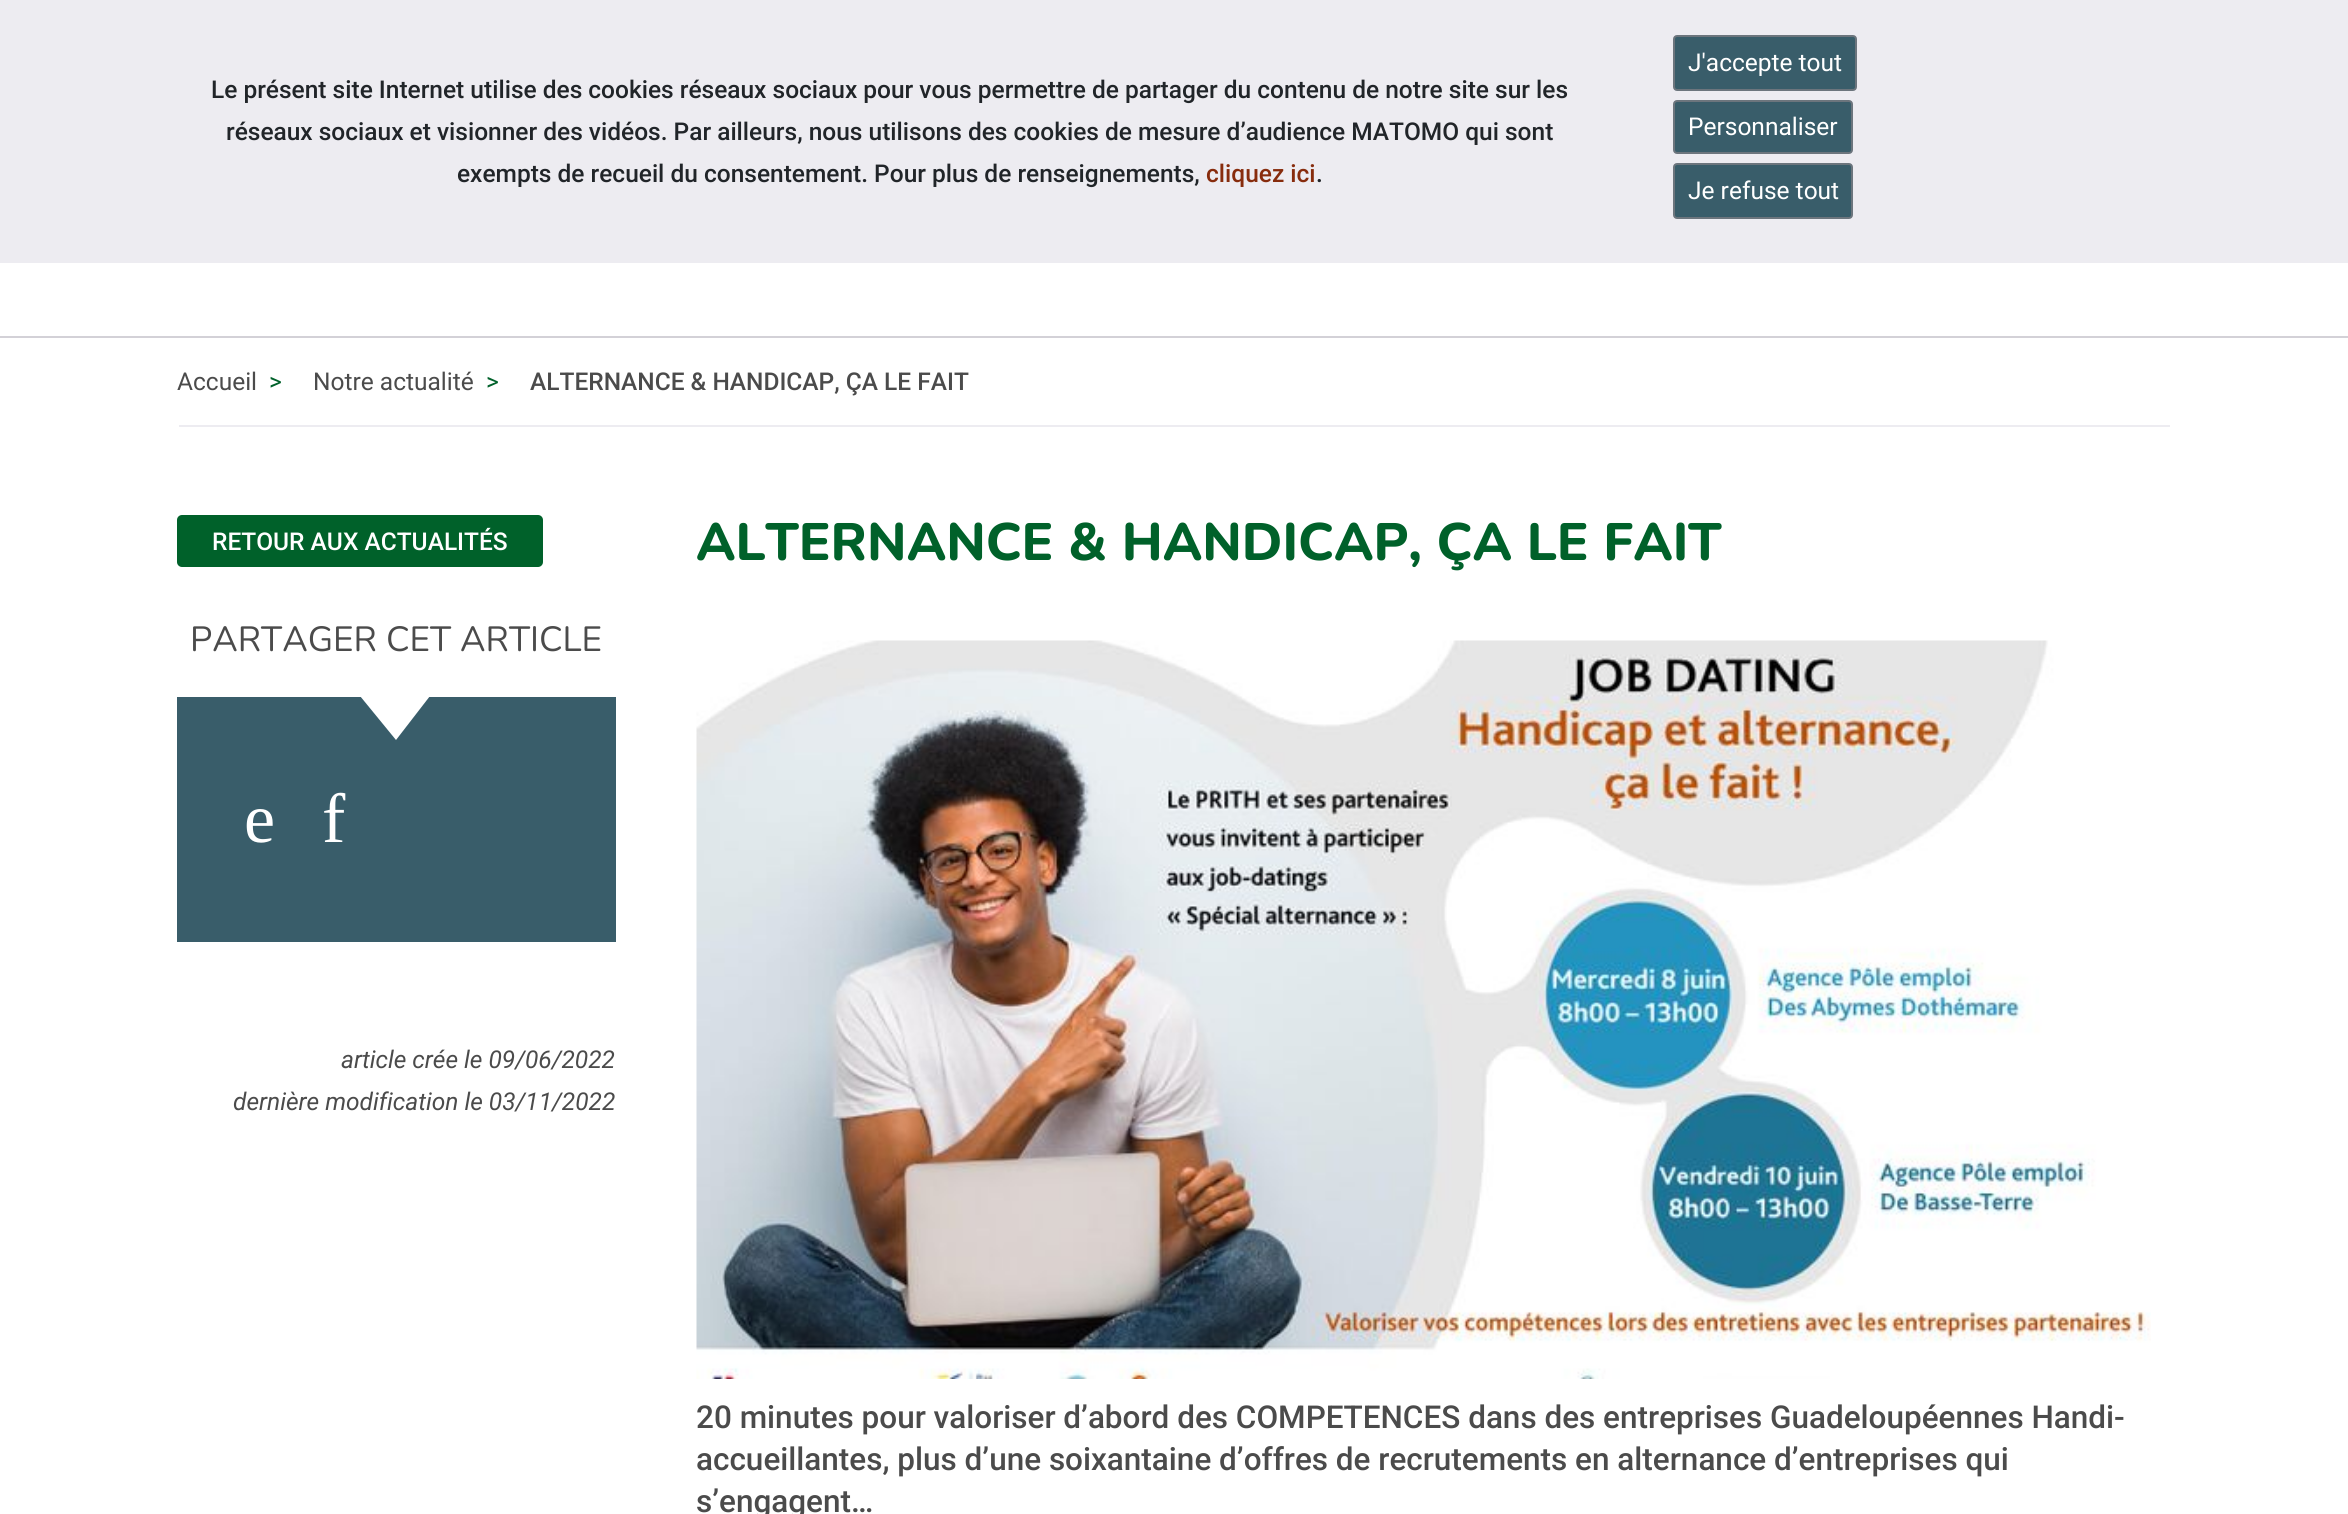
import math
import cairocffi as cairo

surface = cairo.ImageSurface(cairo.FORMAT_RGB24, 2348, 1514)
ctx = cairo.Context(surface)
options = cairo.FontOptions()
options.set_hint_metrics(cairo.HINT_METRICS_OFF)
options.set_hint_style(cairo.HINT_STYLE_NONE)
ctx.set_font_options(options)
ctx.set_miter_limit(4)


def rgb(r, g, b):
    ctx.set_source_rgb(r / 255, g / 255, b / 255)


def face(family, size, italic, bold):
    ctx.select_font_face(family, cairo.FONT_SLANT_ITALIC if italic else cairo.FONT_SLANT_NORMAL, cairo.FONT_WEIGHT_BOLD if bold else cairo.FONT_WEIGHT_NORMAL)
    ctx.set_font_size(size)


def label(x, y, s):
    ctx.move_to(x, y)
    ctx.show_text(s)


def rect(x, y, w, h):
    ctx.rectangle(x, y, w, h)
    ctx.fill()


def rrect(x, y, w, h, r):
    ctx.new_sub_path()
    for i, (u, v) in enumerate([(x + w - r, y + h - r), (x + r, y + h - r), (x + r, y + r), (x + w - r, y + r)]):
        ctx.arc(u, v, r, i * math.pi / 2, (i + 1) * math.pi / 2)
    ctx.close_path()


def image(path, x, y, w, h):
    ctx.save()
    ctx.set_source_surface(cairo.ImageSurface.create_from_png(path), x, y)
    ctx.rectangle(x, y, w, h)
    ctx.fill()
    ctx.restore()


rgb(255, 255, 255)
ctx.paint()
rgb(237, 236, 241)
rect(0, 0, 2348, 263)
face('Roboto Medium', 24.5, 0, 0)
rgb(33, 37, 41)
label(211, 98, 'Le présent site Internet utilise des cookies réseaux sociaux pour vous permettre de partager du contenu de notre site sur les')
label(226, 140, 'réseaux sociaux et visionner des vidéos. Par ailleurs, nous utilisons des cookies de mesure d’audience MATOMO qui sont')
label(457, 182, 'exempts de recueil du consentement. Pour plus de renseignements,')
rgb(135, 44, 13)
label(1206, 182, 'cliquez ici')
rgb(33, 37, 41)
label(1316, 182, '.')
rgb(57, 93, 106)
rrect(1674, 36, 182, 54, 3)
ctx.fill_preserve()
rgb(108, 117, 125)
ctx.stroke()
face('Roboto', 24.5, 0, 0)
rgb(255, 255, 255)
label(1688, 71, 'J\'accepte tout')
rgb(57, 93, 106)
rrect(1674, 101, 178, 52, 3)
ctx.fill_preserve()
rgb(108, 117, 125)
ctx.stroke()
rgb(255, 255, 255)
label(1688, 135, 'Personnaliser')
rgb(57, 93, 106)
rrect(1674, 164, 178, 54, 3)
ctx.fill_preserve()
rgb(108, 117, 125)
ctx.stroke()
rgb(255, 255, 255)
label(1688, 199, 'Je refuse tout')
rgb(211, 209, 215)
rect(0, 336, 2348, 2)
rgb(237, 236, 241)
rect(179, 425, 1991, 2)
rgb(75, 75, 75)
label(177, 390, 'Accueil')
rgb(0, 97, 42)
label(269, 390, '>')
rgb(75, 75, 75)
label(313, 390, 'Notre actualité')
rgb(0, 97, 42)
label(486, 390, '>')
face('Roboto Medium', 24.5, 0, 0)
rgb(75, 75, 75)
label(530, 390, 'ALTERNANCE & HANDICAP, ÇA LE FAIT')
rgb(0, 97, 42)
rrect(177, 515, 366, 52, 5)
ctx.fill()
rgb(255, 255, 255)
label(212, 550, 'RETOUR AUX ACTUALITÉS')
face('Nunito', 35, 0, 0)
rgb(75, 75, 75)
label(190, 651, 'PARTAGER CET ARTICLE')
rgb(57, 93, 106)
rect(177, 697, 439, 245)
rgb(255, 255, 255)
ctx.new_path()
ctx.move_to(360, 696)
ctx.line_to(430, 696)
ctx.line_to(396, 740)
ctx.close_path()
ctx.fill()
face('Liberation Serif', 70, 0, 0)
label(244, 842, 'e')
label(322, 842, 'f')
face('Roboto', 24.5, 1, 0)
rgb(75, 75, 75)
label(341, 1068, 'article crée le 09/06/2022')
label(233, 1110, 'dernière modification le 03/11/2022')
face('Nunito ExtraBold', 52.5, 0, 0)
rgb(0, 97, 42)
label(696, 560, 'ALTERNANCE & HANDICAP, ÇA LE FAIT')
image('image0.png', 696, 640, 1455, 739)
face('Roboto Medium', 31.5, 0, 0)
rgb(75, 75, 75)
label(696, 1428, '20 minutes pour valoriser d’abord des COMPETENCES dans des entreprises Guadeloupéennes Handi-')
label(696, 1470, 'accueillantes, plus d’une soixantaine d’offres de recrutements en alternance d’entreprises qui')
label(696, 1512, 's’engagent…')
surface.write_to_png('render.png')
